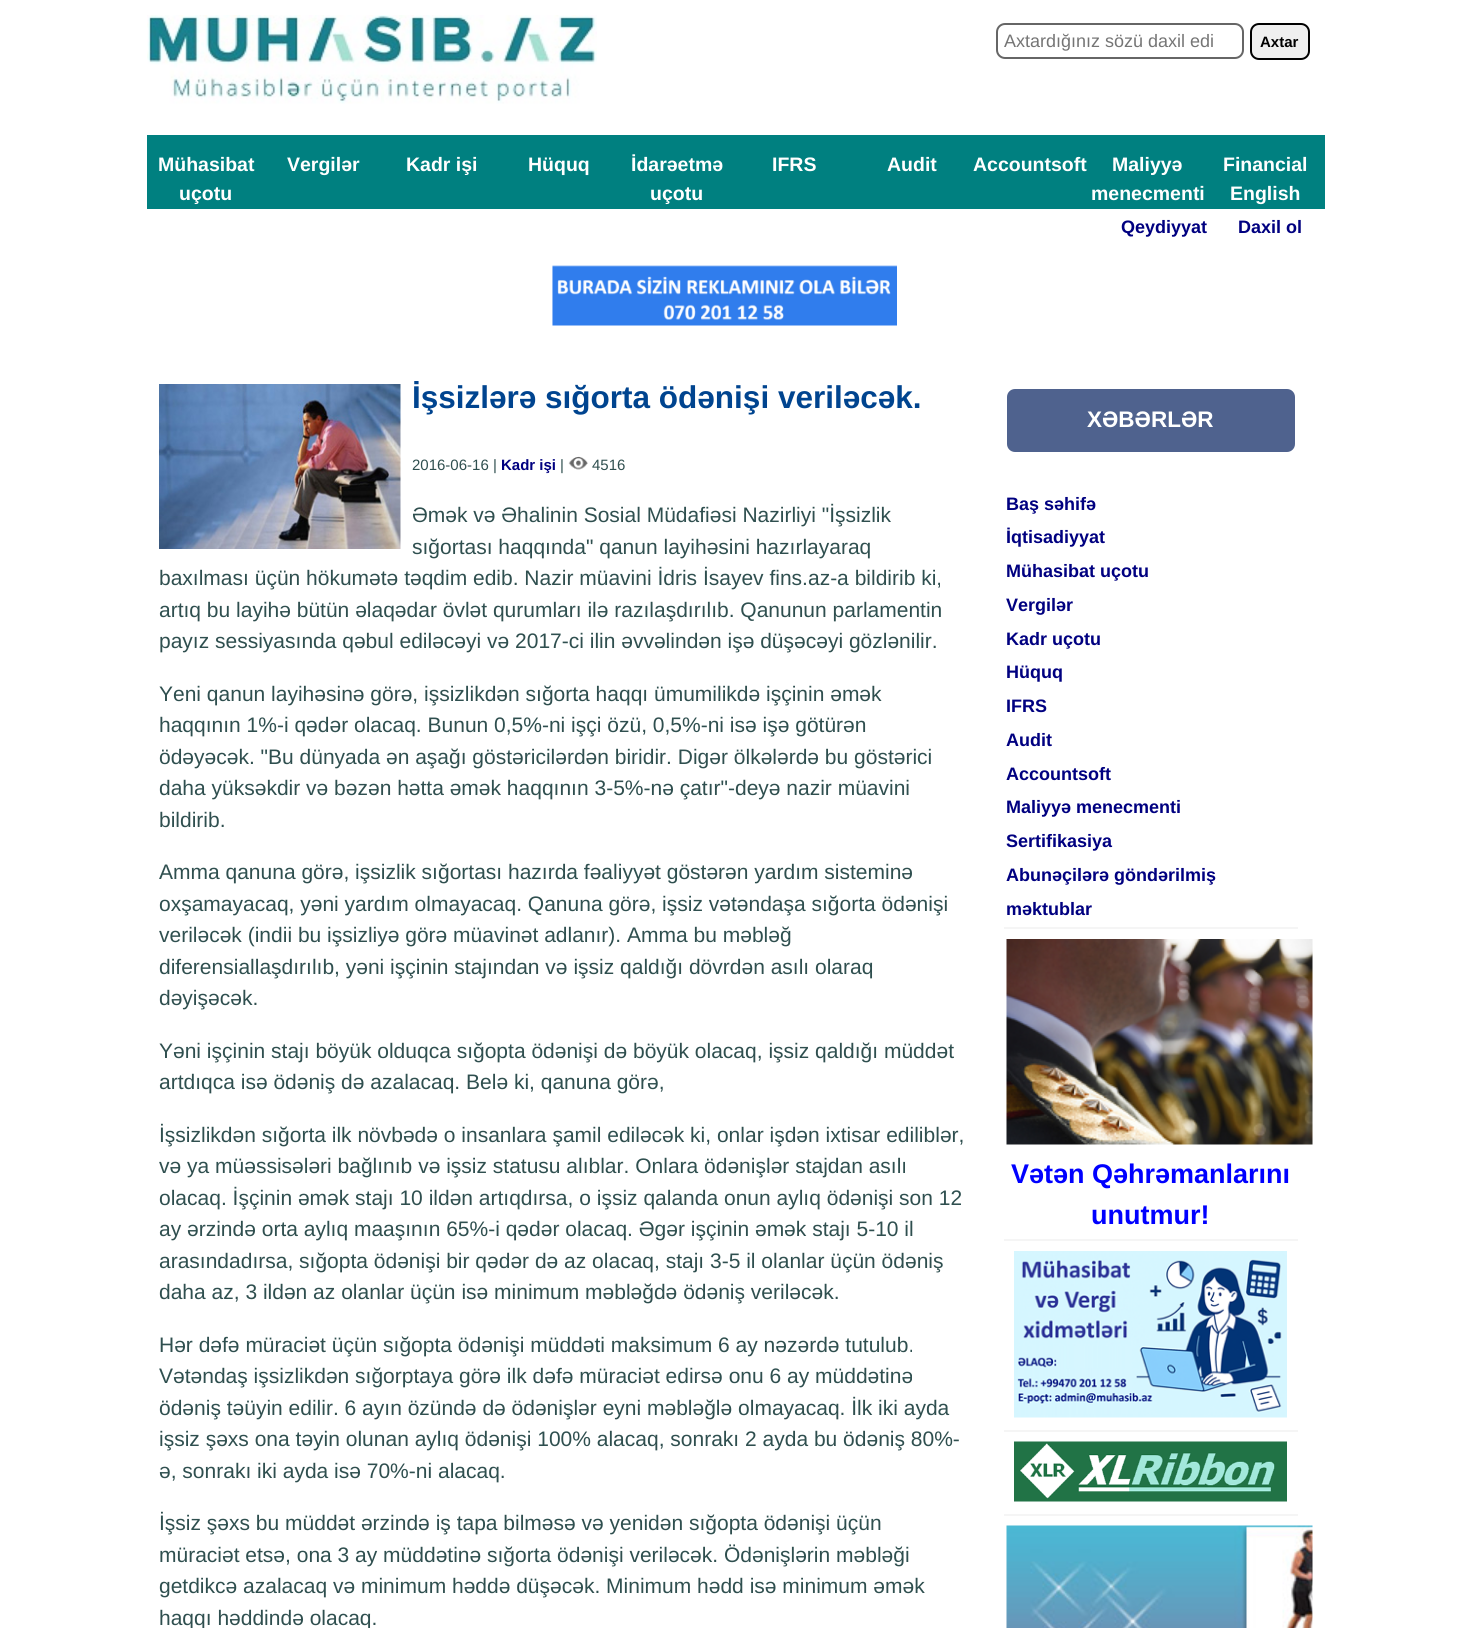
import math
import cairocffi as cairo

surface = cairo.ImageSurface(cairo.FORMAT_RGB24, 1471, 1628)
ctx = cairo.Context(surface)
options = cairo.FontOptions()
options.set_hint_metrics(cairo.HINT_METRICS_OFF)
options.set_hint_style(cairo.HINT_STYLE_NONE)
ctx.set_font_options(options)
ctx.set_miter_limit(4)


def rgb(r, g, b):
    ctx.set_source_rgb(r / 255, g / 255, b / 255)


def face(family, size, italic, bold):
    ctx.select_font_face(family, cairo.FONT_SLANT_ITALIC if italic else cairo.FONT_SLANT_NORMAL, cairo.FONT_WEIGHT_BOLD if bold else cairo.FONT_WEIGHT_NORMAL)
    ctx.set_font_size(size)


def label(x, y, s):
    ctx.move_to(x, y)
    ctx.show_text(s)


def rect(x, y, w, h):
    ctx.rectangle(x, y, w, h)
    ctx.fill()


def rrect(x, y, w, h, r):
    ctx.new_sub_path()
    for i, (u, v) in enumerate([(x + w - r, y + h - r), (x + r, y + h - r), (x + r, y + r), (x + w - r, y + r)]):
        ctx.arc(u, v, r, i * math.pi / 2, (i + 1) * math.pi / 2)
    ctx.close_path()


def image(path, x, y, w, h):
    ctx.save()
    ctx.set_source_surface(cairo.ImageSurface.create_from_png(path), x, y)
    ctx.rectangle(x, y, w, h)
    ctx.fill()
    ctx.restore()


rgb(255, 255, 255)
ctx.paint()
image('image0.png', 147, 15, 450, 89)
rrect(997, 24, 246, 34, 8)
rgb(102, 102, 102)
ctx.stroke()
face('Liberation Sans', 18, 0, 0)
rgb(117, 117, 117)
label(1004, 47, 'Axtardığınız sözü daxil edi')
rgb(239, 239, 239)
rrect(1251, 24, 58, 35, 8)
ctx.fill_preserve()
rgb(0, 0, 0)
ctx.stroke()
face('Liberation Sans', 15, 0, 1)
label(1260, 47, 'Axtar')
rgb(0, 128, 128)
rect(147, 135, 1178, 74)
face('Liberation Sans', 19.5, 0, 1)
rgb(255, 255, 255)
label(158, 171, 'Mühasibat')
label(179, 200, 'uçotu')
label(287, 171, 'Vergilər')
label(406, 171, 'Kadr işi')
label(528, 171, 'Hüquq')
label(631, 171, 'İdarəetmə')
label(650, 200, 'uçotu')
label(772, 171, 'IFRS')
label(887, 171, 'Audit')
label(973, 171, 'Accountsoft')
label(1112, 171, 'Maliyyə')
label(1091, 200, 'menecmenti')
label(1223, 171, 'Financial')
label(1230, 200, 'English')
face('Liberation Sans', 18, 0, 1)
rgb(0, 0, 128)
label(1121, 233, 'Qeydiyyat')
label(1238, 233, 'Daxil ol')
image('image1.png', 552, 265, 345, 61)
image('image2.png', 159, 384, 242, 165)
face('Liberation Sans', 31.5, 0, 1)
rgb(0, 68, 143)
label(412, 408, 'İşsizlərə sığorta ödənişi veriləcək.')
face('Liberation Sans', 15, 0, 0)
rgb(47, 79, 79)
label(412, 470, '2016-06-16 |')
face('Liberation Sans', 15, 0, 1)
rgb(0, 0, 128)
label(501, 470, 'Kadr işi')
face('Liberation Sans', 15, 0, 0)
rgb(47, 79, 79)
label(560, 470, '|')
image('image3.png', 568, 456, 20, 14)
label(592, 470, '4516')
face('Liberation Sans', 21, 0, 0)
label(412, 522, 'Əmək və Əhalinin Sosial Müdafiəsi Nazirliyi "İşsizlik')
label(412, 554, 'sığortası haqqında" qanun layihəsini hazırlayaraq')
label(159, 585, 'baxılması üçün hökumətə təqdim edib. Nazir müavini İdris İsayev fins.az-a bildirib ki,')
label(159, 617, 'artıq bu layihə bütün əlaqədar övlət qurumları ilə razılaşdırılıb. Qanunun parlamentin')
label(159, 648, 'payız sessiyasında qəbul ediləcəyi və 2017-ci ilin əvvəlindən işə düşəcəyi gözlənilir.')
label(159, 701, 'Yeni qanun layihəsinə görə, işsizlikdən sığorta haqqı ümumilikdə işçinin əmək')
label(159, 732, 'haqqının 1%-i qədər olacaq. Bunun 0,5%-ni işçi özü, 0,5%-ni isə işə götürən')
label(159, 764, 'ödəyəcək. "Bu dünyada ən aşağı göstəricilərdən biridir. Digər ölkələrdə bu göstərici')
label(159, 795, 'daha yüksəkdir və bəzən hətta əmək haqqının 3-5%-nə çatır"-deyə nazir müavini')
label(159, 827, 'bildirib.')
label(159, 879, 'Amma qanuna görə, işsizlik sığortası hazırda fəaliyyət göstərən yardım sisteminə')
label(159, 911, 'oxşamayacaq, yəni yardım olmayacaq. Qanuna görə, işsiz vətəndaşa sığorta ödənişi')
label(159, 942, 'veriləcək (indii bu işsizliyə görə müavinət adlanır). Amma bu məbləğ')
label(159, 974, 'diferensiallaşdırılıb, yəni işçinin stajından və işsiz qaldığı dövrdən asılı olaraq')
label(159, 1005, 'dəyişəcək.')
label(159, 1058, 'Yəni işçinin stajı böyük olduqca sığopta ödənişi də böyük olacaq, işsiz qaldığı müddət')
label(159, 1089, 'artdıqca isə ödəniş də azalacaq. Belə ki, qanuna görə,')
label(159, 1142, 'İşsizlikdən sığorta ilk növbədə o insanlara şamil ediləcək ki, onlar işdən ixtisar ediliblər,')
label(159, 1173, 'və ya müəssisələri bağlınıb və işsiz statusu alıblar. Onlara ödənişlər stajdan asılı')
label(159, 1205, 'olacaq. İşçinin əmək stajı 10 ildən artıqdırsa, o işsiz qalanda onun aylıq ödənişi son 12')
label(159, 1236, 'ay ərzində orta aylıq maaşının 65%-i qədər olacaq. Əgər işçinin əmək stajı 5-10 il')
label(159, 1268, 'arasındadırsa, sığopta ödənişi bir qədər də az olacaq, stajı 3-5 il olanlar üçün ödəniş')
label(159, 1299, 'daha az, 3 ildən az olanlar üçün isə minimum məbləğdə ödəniş veriləcək.')
label(159, 1352, 'Hər dəfə müraciət üçün sığopta ödənişi müddəti maksimum 6 ay nəzərdə tutulub.')
label(159, 1383, 'Vətəndaş işsizlikdən sığorptaya görə ilk dəfə müraciət edirsə onu 6 ay müddətinə')
label(159, 1415, 'ödəniş təüyin edilir. 6 ayın özündə də ödənişlər eyni məbləğlə olmayacaq. İlk iki ayda')
label(159, 1446, 'işsiz şəxs ona təyin olunan aylıq ödənişi 100% alacaq, sonrakı 2 ayda bu ödəniş 80%-')
label(159, 1478, 'ə, sonrakı iki ayda isə 70%-ni alacaq.')
label(159, 1530, 'İşsiz şəxs bu müddət ərzində iş tapa bilməsə və yenidən sığopta ödənişi üçün')
label(159, 1562, 'müraciət etsə, ona 3 ay müddətinə sığorta ödənişi veriləcək. Ödənişlərin məbləği')
label(159, 1593, 'getdikcə azalacaq və minimum həddə düşəcək. Minimum hədd isə minimum əmək')
label(159, 1625, 'haqqı həddində olacaq.')
rgb(245, 245, 245)
rect(1004, 927, 294, 2)
rgb(79, 98, 142)
rrect(1007, 389, 288, 63, 8)
ctx.fill()
face('Liberation Sans', 22.5, 0, 1)
rgb(255, 255, 255)
label(1087, 427, 'XƏBƏRLƏR')
face('Liberation Sans', 18, 0, 1)
rgb(0, 0, 128)
label(1006, 510, 'Baş səhifə')
label(1006, 543, 'İqtisadiyyat')
label(1006, 577, 'Mühasibat uçotu')
label(1006, 611, 'Vergilər')
label(1006, 645, 'Kadr uçotu')
label(1006, 678, 'Hüquq')
label(1006, 712, 'IFRS')
label(1006, 746, 'Audit')
label(1006, 780, 'Accountsoft')
label(1006, 813, 'Maliyyə menecmenti')
label(1006, 847, 'Sertifikasiya')
label(1006, 881, 'Abunəçilərə göndərilmiş')
label(1006, 915, 'məktublar')
rgb(245, 245, 245)
rect(1004, 1239, 294, 2)
image('image4.png', 1006, 939, 307, 206)
face('Liberation Sans', 27, 0, 1)
rgb(0, 0, 255)
label(1011, 1183, 'Vətən Qəhrəmanlarını')
label(1091, 1224, 'unutmur!')
rgb(245, 245, 245)
rect(1004, 1430, 294, 2)
image('image5.png', 1014, 1251, 273, 167)
rect(1004, 1514, 294, 2)
image('image6.png', 1014, 1441, 273, 61)
image('image7.png', 1006, 1525, 307, 103)
surface.write_to_png('render.png')
